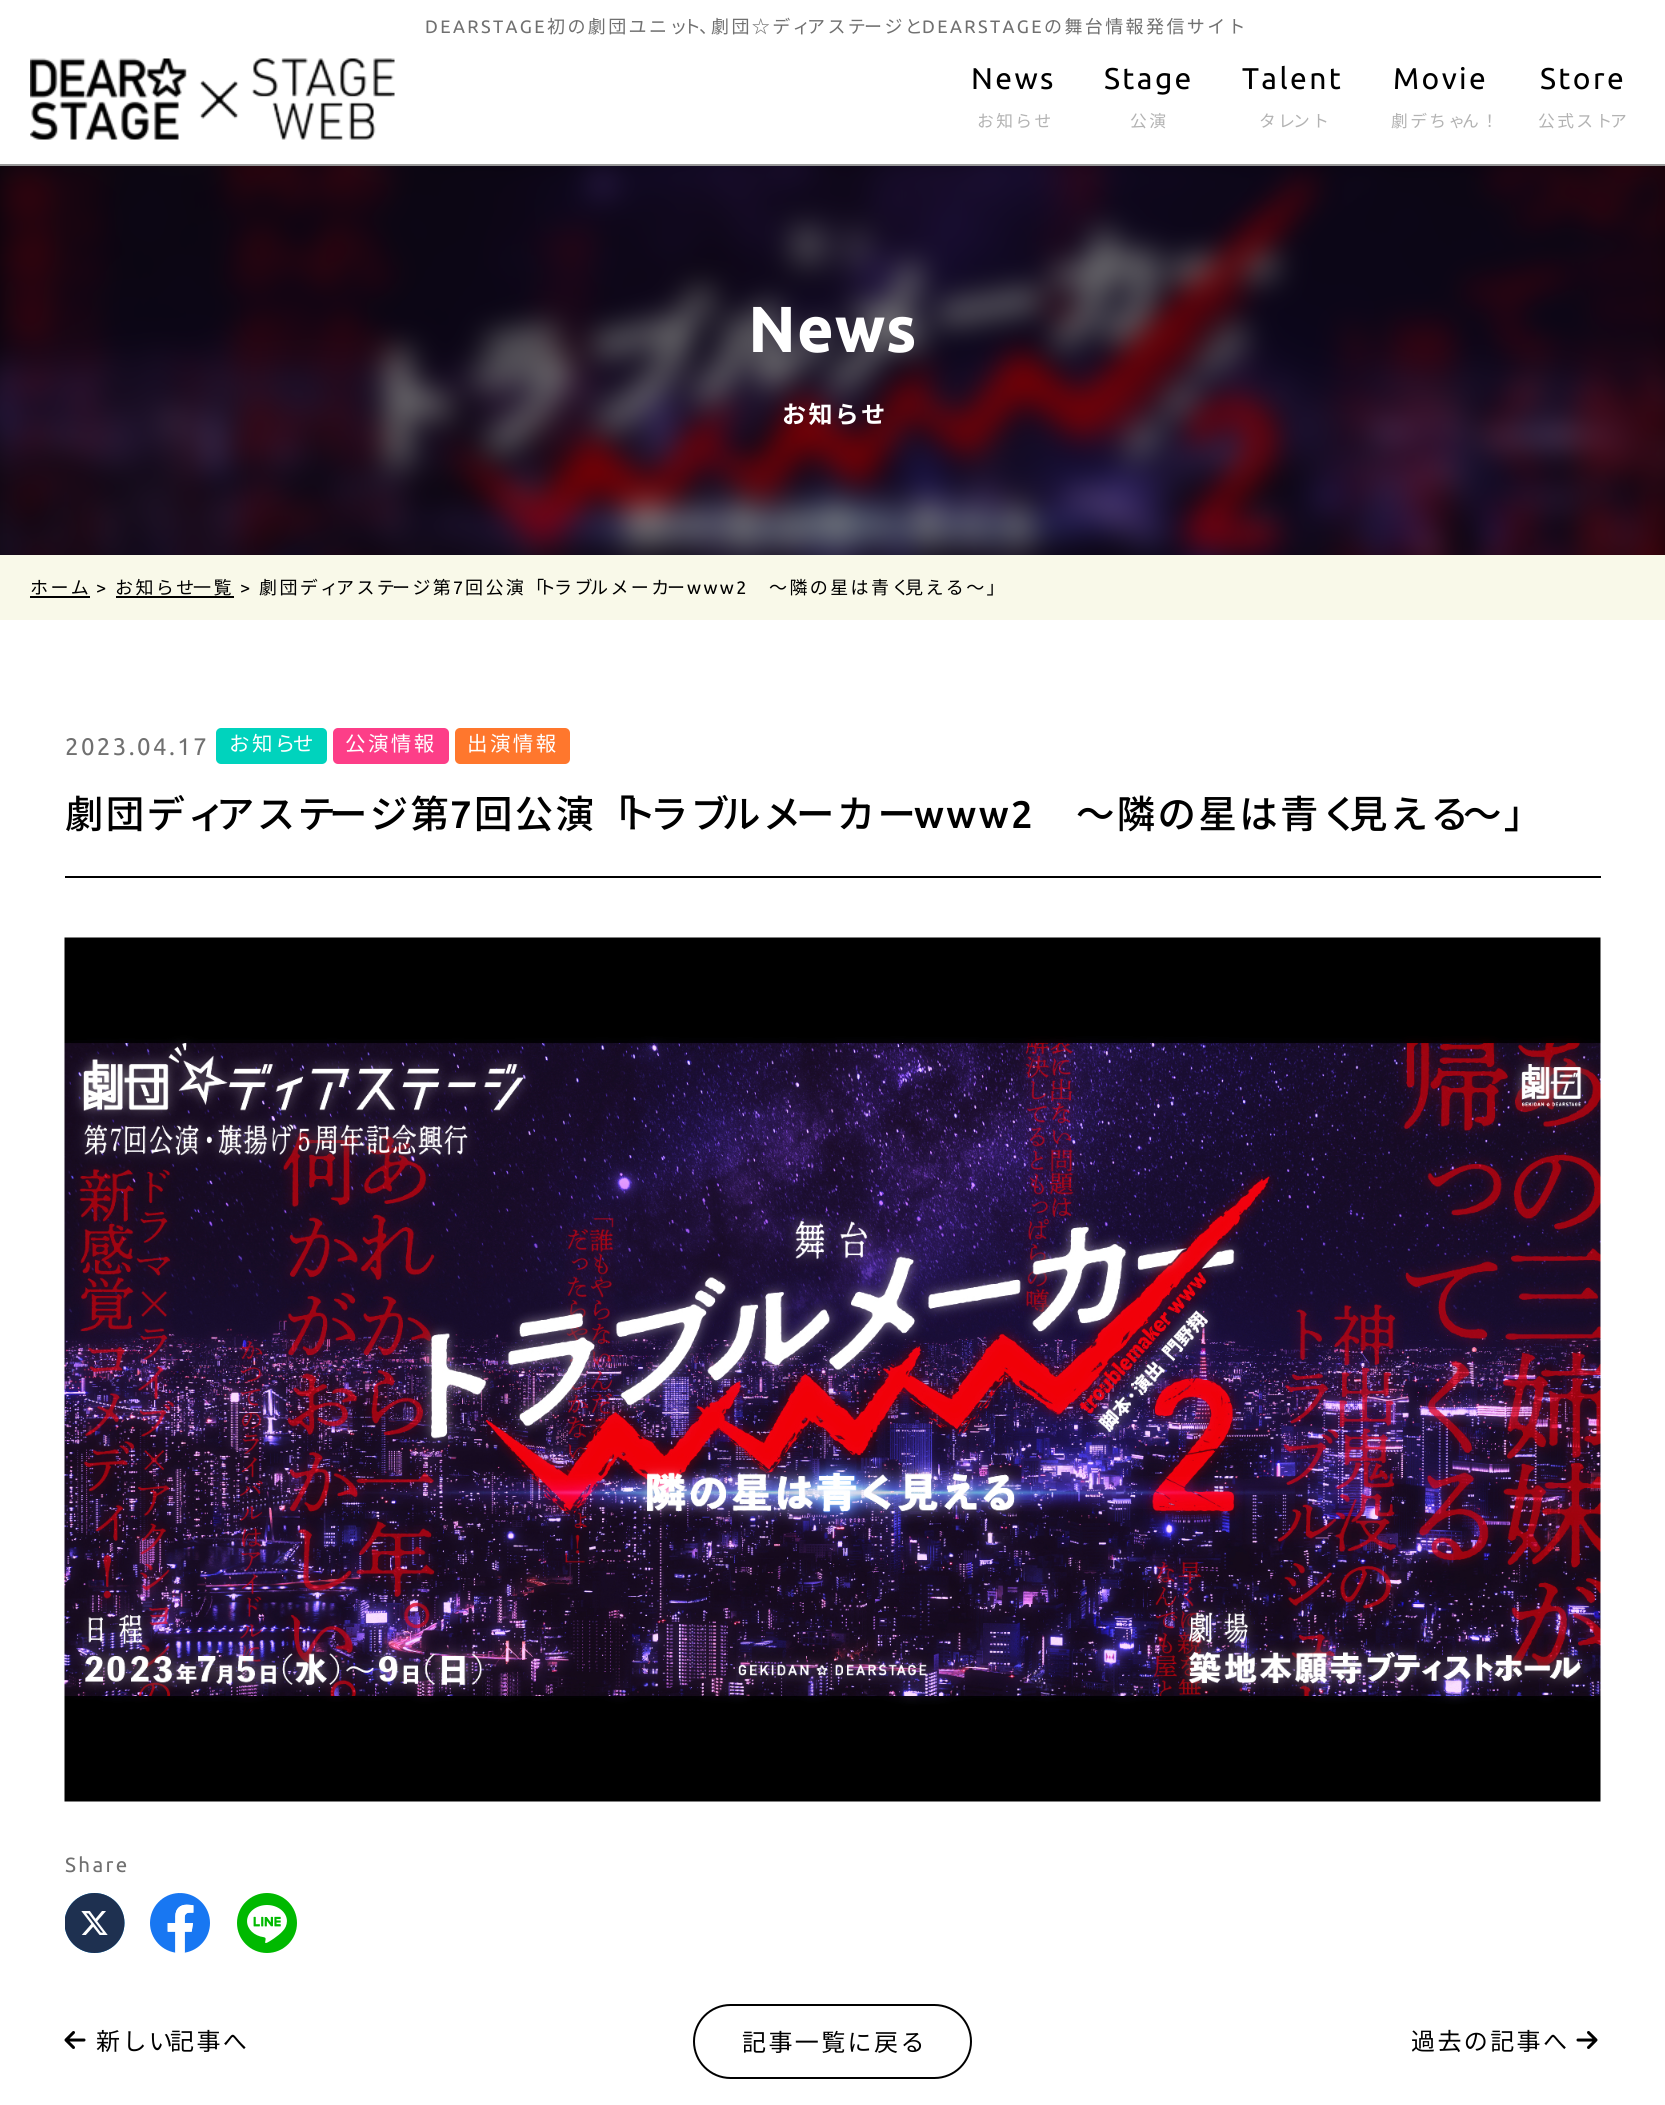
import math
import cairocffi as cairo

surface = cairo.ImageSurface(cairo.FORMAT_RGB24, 1665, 2105)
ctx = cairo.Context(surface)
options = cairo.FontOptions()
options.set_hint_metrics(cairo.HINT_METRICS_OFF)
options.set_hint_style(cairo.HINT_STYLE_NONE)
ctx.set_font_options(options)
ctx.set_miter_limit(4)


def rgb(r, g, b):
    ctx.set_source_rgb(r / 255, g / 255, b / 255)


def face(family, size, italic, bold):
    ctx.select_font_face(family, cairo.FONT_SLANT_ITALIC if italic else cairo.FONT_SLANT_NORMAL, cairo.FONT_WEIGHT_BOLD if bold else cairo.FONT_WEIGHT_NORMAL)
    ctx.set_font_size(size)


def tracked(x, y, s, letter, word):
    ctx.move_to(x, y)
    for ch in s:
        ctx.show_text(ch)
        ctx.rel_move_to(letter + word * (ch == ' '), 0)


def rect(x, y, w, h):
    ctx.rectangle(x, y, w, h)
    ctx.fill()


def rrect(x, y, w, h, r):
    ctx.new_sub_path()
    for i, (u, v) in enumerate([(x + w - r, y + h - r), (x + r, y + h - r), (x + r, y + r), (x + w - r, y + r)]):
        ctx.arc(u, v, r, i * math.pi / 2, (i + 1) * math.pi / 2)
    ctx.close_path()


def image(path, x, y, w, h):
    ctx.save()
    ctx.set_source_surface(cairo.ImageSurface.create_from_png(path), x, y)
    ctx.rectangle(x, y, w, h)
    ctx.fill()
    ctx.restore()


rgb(255, 255, 255)
ctx.paint()
rgb(153, 153, 153)
rect(0, 164, 1665, 2)
face('Ubuntu', 18, 0, 0)
rgb(112, 112, 112)
tracked(425, 33, 'DEARSTAGE', 2.4, 0)
face('Noto Sans JP', 18, 0, 0)
tracked(547, 33, '初の劇団ユニッ', 2.4, 0)
tracked(683, 33, 'ト', 2.4, 0)
tracked(699, 33, '、', 2.4, 0)
tracked(711, 33, '劇団☆ディ', 2.4, 0)
tracked(807, 33, 'アステ', 2.4, 0)
tracked(864, 33, 'ージと', 2.4, 0)
face('Ubuntu', 18, 0, 0)
tracked(922, 33, 'DEARSTAGE', 2.4, 0)
face('Noto Sans JP', 18, 0, 0)
tracked(1044, 33, 'の舞台情報発信サイト', 2.4, 0)
image('image0.png', 30, 58, 365, 82)
face('Ubuntu', 30, 0, 0)
rgb(0, 0, 0)
tracked(971, 89, 'News', 2.4, 0)
face('Noto Sans JP', 16.75, 0, 0)
rgb(179, 179, 179)
tracked(977, 127, 'お知らせ', 2.4, 0)
face('Ubuntu', 30, 0, 0)
rgb(0, 0, 0)
tracked(1104, 89, 'Stage', 2.4, 0)
face('Noto Sans JP', 16.75, 0, 0)
rgb(179, 179, 179)
tracked(1130, 127, '公演', 2.4, 0)
face('Ubuntu', 30, 0, 0)
rgb(0, 0, 0)
tracked(1242, 89, 'Talent', 2.4, 0)
face('Noto Sans JP', 16.75, 0, 0)
rgb(179, 179, 179)
tracked(1259, 127, 'タレ', 2.4, 0)
tracked(1293, 127, 'ント', 2.4, 0)
face('Ubuntu', 30, 0, 0)
rgb(0, 0, 0)
tracked(1393, 89, 'Movie', 2.4, 0)
face('Noto Sans JP', 16.75, 0, 0)
rgb(179, 179, 179)
tracked(1391, 127, '劇デちゃ', 2.4, 0)
tracked(1462, 127, 'ん！', 2.4, 0)
face('Ubuntu', 30, 0, 0)
rgb(0, 0, 0)
tracked(1540, 89, 'Store', 2.4, 0)
face('Noto Sans JP', 16.75, 0, 0)
rgb(179, 179, 179)
tracked(1538, 127, '公式スト', 2.4, 0)
tracked(1610, 127, 'ア', 2.4, 0)
rgb(0, 0, 0)
rect(0, 166, 1665, 389)
image('image1.png', 0, 166, 1665, 389)
face('Ubuntu', 62.5, 0, 1)
rgb(255, 255, 255)
tracked(748, 352, 'News', 2.4, 0)
face('Noto Sans JP', 24, 0, 1)
tracked(782, 423, 'お知らせ', 2.4, 0)
rgb(249, 249, 233)
rect(0, 555, 1665, 65)
face('Noto Sans JP', 18, 0, 0)
rgb(0, 0, 0)
tracked(30, 594, 'ホーム', 2.4, 0)
rect(30, 596, 60, 2)
face('Ubuntu', 18, 0, 0)
tracked(96, 594, '>', 2.4, 0)
face('Noto Sans JP', 18, 0, 0)
tracked(115, 594, 'お知らせ', 2.4, 0)
tracked(193, 594, '一覧', 2.4, 0)
rect(116, 596, 118, 2)
face('Ubuntu', 18, 0, 0)
tracked(240, 594, '>', 2.4, 0)
face('Noto Sans JP', 18, 0, 0)
tracked(259, 594, '劇団ディ', 2.4, 0)
tracked(336, 594, 'アステ', 2.4, 0)
tracked(392, 594, 'ージ第', 2.4, 0)
face('Ubuntu', 18, 0, 0)
tracked(453, 594, '7', 2.4, 0)
face('Noto Sans JP', 18, 0, 0)
tracked(465, 594, '回公演「', 2.4, 0)
tracked(538, 594, 'ト', 2.4, 0)
tracked(554, 594, 'ラブ', 2.4, 0)
tracked(590, 594, 'ルメーカ', 2.4, 0)
tracked(667, 594, 'ー', 2.4, 0)
face('Ubuntu', 18, 0, 0)
tracked(687, 594, 'www2', 2.4, 0)
face('Noto Sans JP', 18, 0, 0)
tracked(769, 594, '～隣の星は青く', 2.4, 0)
tracked(905, 594, '見える～」', 2.4, 0)
face('Ubuntu', 24, 0, 0)
rgb(112, 112, 112)
tracked(65, 755, '2023.04.17', 2.4, 0)
rgb(0, 211, 189)
rrect(216, 728, 111, 36, 5)
ctx.fill()
face('Noto Sans JP', 20.5, 0, 0)
rgb(255, 255, 255)
tracked(229, 751, 'お知ら', 2.4, 0)
tracked(293, 751, 'せ', 2.4, 0)
rgb(253, 62, 136)
rrect(333, 728, 116, 36, 5)
ctx.fill()
rgb(255, 255, 255)
tracked(345, 751, '公演情報', 2.4, 0)
rgb(255, 119, 45)
rrect(455, 728, 115, 36, 5)
ctx.fill()
rgb(255, 255, 255)
tracked(467, 751, '出演情報', 2.4, 0)
rgb(0, 0, 0)
rect(65, 876, 1536, 2)
face('Noto Sans JP Medium', 38.4, 0, 0)
tracked(65, 828, '劇団ディ', 2.4, 0)
tracked(216, 828, 'アステ', 2.4, 0)
tracked(329, 828, 'ージ第', 2.4, 0)
face('Ubuntu Medium', 38.4, 0, 0)
tracked(450, 828, '7', 2.4, 0)
face('Noto Sans JP Medium', 38.4, 0, 0)
tracked(474, 828, '回公演「', 2.4, 0)
tracked(618, 828, 'ト', 2.4, 0)
tracked(650, 828, 'ラブ', 2.4, 0)
tracked(722, 828, 'ルメ', 2.4, 0)
tracked(796, 828, 'ーカー', 2.4, 0)
face('Ubuntu Medium', 38.4, 0, 0)
tracked(914, 828, 'www2', 2.4, 0)
face('Noto Sans JP Medium', 38.4, 0, 0)
tracked(1076, 828, '～隣の星は青く', 2.4, 0)
tracked(1349, 828, '見える', 2.4, 0)
tracked(1463, 828, '～」', 2.4, 0)
image('image2.png', 64, 937, 1537, 865)
face('Ubuntu', 20.5, 0, 0)
rgb(112, 112, 112)
tracked(65, 1872, 'Share', 2.4, 0)
image('image3.png', 65, 1893, 60, 60)
image('image4.png', 150, 1893, 60, 60)
image('image5.png', 237, 1893, 60, 60)
image('image6.png', 64, 2031, 22, 18)
face('Noto Sans JP', 24, 0, 0)
rgb(0, 0, 0)
tracked(96, 2050, '新しい', 2.4, 0)
tracked(170, 2050, '記事へ', 2.4, 0)
tracked(1411, 2050, '過去の記事へ', 2.4, 0)
image('image7.png', 1576, 2031, 22, 18)
rrect(694, 2005, 277, 73, 36.5)
ctx.stroke()
tracked(742, 2051, '記事一覧に戻る', 2.4, 0)
surface.write_to_png('render.png')
